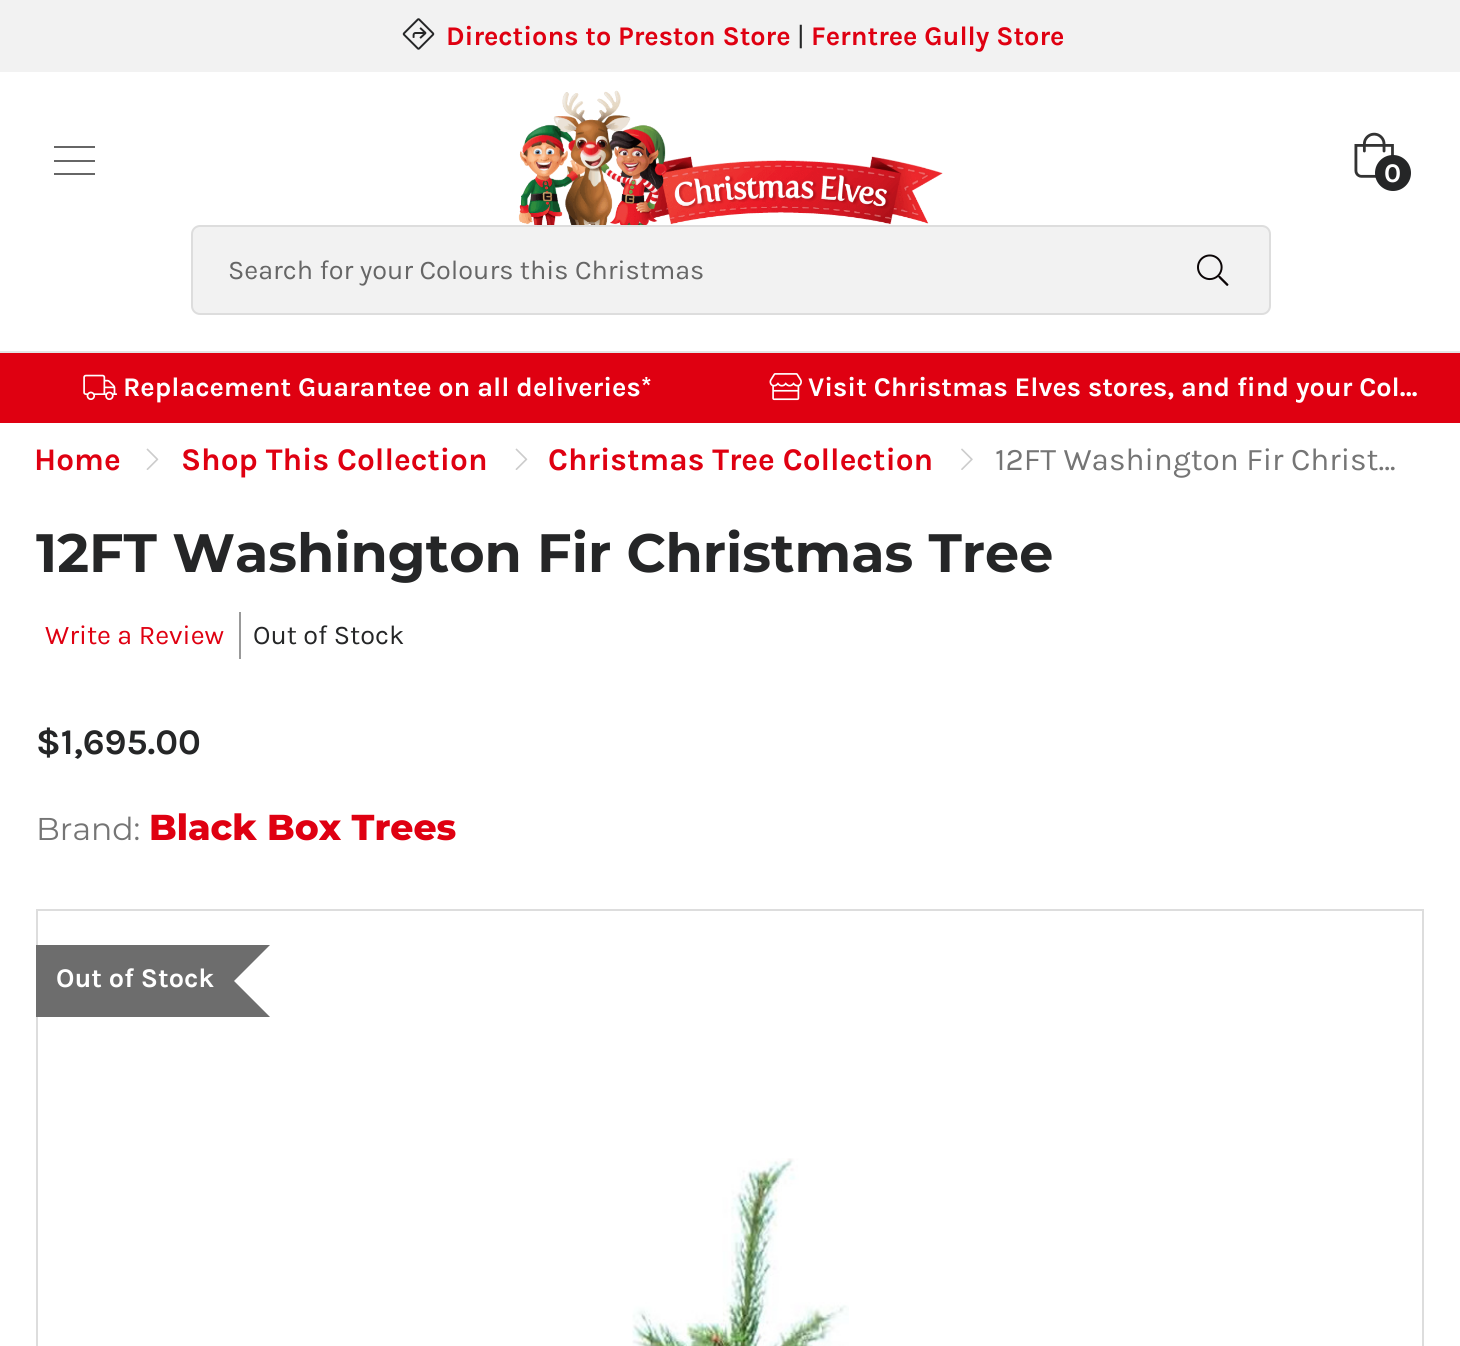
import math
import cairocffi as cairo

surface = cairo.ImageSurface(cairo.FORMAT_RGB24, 1460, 1346)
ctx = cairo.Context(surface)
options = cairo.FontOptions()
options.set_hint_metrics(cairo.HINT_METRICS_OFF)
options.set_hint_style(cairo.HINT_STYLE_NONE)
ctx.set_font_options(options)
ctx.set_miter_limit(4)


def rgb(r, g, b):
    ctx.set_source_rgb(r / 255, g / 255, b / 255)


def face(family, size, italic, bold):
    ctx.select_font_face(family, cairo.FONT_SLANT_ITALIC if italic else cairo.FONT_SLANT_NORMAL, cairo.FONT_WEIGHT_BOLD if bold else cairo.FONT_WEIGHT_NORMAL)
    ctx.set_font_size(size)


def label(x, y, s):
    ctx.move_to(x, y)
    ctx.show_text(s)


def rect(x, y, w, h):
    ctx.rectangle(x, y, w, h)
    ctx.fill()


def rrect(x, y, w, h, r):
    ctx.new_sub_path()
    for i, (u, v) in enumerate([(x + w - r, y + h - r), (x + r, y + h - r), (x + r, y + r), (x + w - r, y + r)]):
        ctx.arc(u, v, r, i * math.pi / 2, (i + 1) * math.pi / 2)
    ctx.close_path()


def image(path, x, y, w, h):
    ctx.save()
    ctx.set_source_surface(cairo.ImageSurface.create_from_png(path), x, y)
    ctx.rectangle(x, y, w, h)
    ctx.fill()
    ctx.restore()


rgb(255, 255, 255)
ctx.paint()
rgb(229, 229, 229)
rect(0, 351, 1460, 2)
rgb(242, 242, 242)
rect(0, 0, 1460, 72)
image('image0.png', 402, 18, 33, 32)
face('Karla', 27, 0, 1)
rgb(223, 0, 17)
label(446, 45, 'Directions to Preston Store')
face('Karla', 27, 0, 0)
rgb(37, 38, 39)
label(797, 45, '|')
face('Karla', 27, 0, 1)
rgb(223, 0, 17)
label(811, 45, 'Ferntree Gully Store')
rgb(102, 102, 102)
rect(54, 160, 41, 2)
rect(54, 146, 41, 2)
rect(54, 173, 41, 2)
image('image1.png', 518, 90, 425, 135)
image('image2.png', 1354, 132, 40, 46)
rgb(37, 38, 39)
ctx.arc(1393, 173, 18, 0, 2 * math.pi)
ctx.fill()
rgb(255, 255, 255)
label(1384, 182, '0')
rgb(242, 242, 242)
rrect(192, 226, 1078, 88, 8)
ctx.fill_preserve()
rgb(221, 221, 221)
ctx.stroke()
face('Karla', 27, 0, 0)
rgb(102, 102, 102)
label(228, 279, 'Search for your Colours this Christmas')
image('image3.png', 1197, 254, 32, 32)
rgb(223, 0, 17)
rect(0, 353, 1460, 70)
image('image4.png', 83, 374, 34, 26)
face('Karla', 27, 0, 1)
rgb(255, 255, 255)
label(123, 396, 'Replacement Guarantee on all deliveries*')
image('image5.png', 769, 373, 33, 28)
label(808, 396, 'Visit Christmas Elves stores, and find your Col…')
face('Karla', 31.5, 0, 1)
rgb(223, 0, 17)
label(34, 470, 'Home')
image('image6.png', 146, 448, 13, 22)
label(181, 470, 'Shop This Collection')
image('image6.png', 515, 448, 13, 22)
label(548, 470, 'Christmas Tree Collection')
image('image7.png', 961, 448, 12, 22)
face('Karla', 31.5, 0, 0)
rgb(117, 117, 117)
label(995, 470, '12FT Washington Fir Christ…')
face('Montserrat', 54, 0, 1)
rgb(37, 38, 39)
label(36, 572, '12FT Washington Fir Christmas Tree')
face('Karla', 27, 0, 0)
rgb(223, 0, 17)
label(45, 644, 'Write a Review')
rgb(153, 153, 153)
rect(239, 612, 2, 47)
rgb(37, 38, 39)
label(253, 644, 'Out of Stock')
face('Karla', 36, 0, 1)
label(36, 754, '$1,695.00')
face('Montserrat', 31.5, 0, 0)
rgb(117, 117, 117)
label(36, 840, 'Brand:')
face('Montserrat ExtraBold', 36, 0, 0)
rgb(223, 0, 17)
label(149, 840, 'Black Box Trees')
ctx.rectangle(37, 910, 1386, 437)
rgb(221, 221, 221)
ctx.stroke()
image('image8.png', 632, 1158, 217, 188)
rgb(109, 109, 109)
rect(36, 945, 198, 72)
face('Karla', 27, 0, 1)
rgb(255, 255, 255)
label(56, 987, 'Out of Stock')
rgb(109, 109, 109)
ctx.new_path()
ctx.move_to(234, 945)
ctx.line_to(270, 945)
ctx.line_to(234, 981)
ctx.close_path()
ctx.fill()
ctx.new_path()
ctx.move_to(270, 1017)
ctx.line_to(234, 1017)
ctx.line_to(234, 981)
ctx.close_path()
ctx.fill()
surface.write_to_png('render.png')
